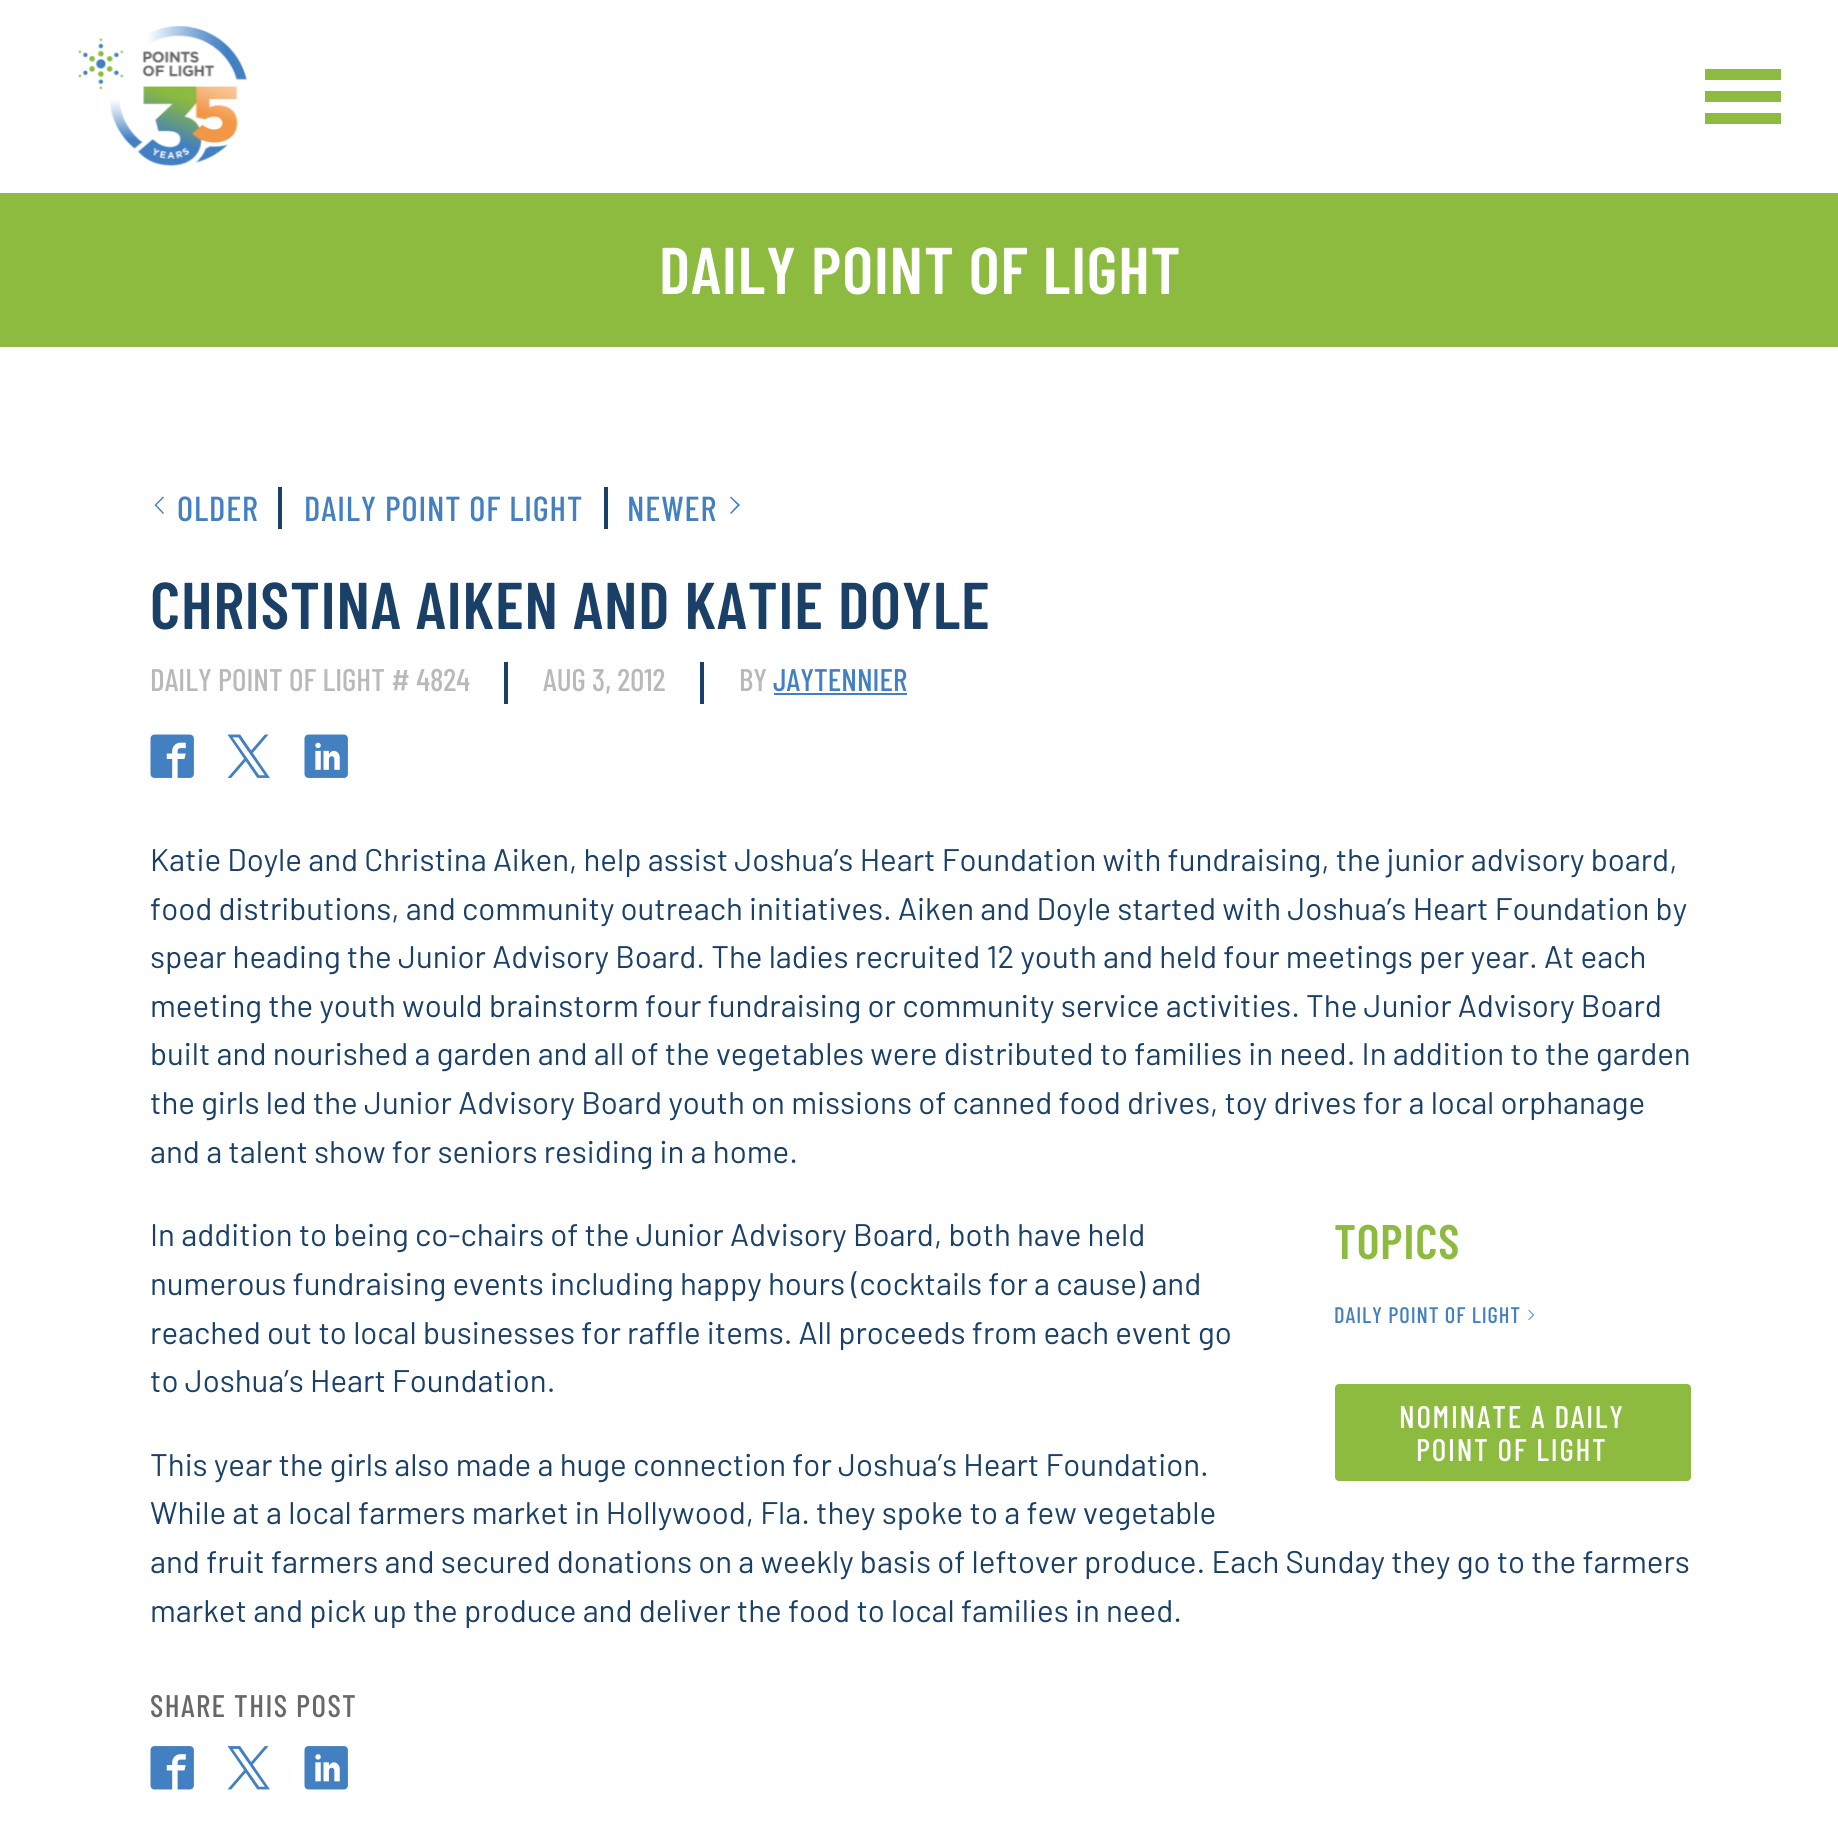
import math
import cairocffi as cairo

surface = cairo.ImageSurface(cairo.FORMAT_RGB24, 1838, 1838)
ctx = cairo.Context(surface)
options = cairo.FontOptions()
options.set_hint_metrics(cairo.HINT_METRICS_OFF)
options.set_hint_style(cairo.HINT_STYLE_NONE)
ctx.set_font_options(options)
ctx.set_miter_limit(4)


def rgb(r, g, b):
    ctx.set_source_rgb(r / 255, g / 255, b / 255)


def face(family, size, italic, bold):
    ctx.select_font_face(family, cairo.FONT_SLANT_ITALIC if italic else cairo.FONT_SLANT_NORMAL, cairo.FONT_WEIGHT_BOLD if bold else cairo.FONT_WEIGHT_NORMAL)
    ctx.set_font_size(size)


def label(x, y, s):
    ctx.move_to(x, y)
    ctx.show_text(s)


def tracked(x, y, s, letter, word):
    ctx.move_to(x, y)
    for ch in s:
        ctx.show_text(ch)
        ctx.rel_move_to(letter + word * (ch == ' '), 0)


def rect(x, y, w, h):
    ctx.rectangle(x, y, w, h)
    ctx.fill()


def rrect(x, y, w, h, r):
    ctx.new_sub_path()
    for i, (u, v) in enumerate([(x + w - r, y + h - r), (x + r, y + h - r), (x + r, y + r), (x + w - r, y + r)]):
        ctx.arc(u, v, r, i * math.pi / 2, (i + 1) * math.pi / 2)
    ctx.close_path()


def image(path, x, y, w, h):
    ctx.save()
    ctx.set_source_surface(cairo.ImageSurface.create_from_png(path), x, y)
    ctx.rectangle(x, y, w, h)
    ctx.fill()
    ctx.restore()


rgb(255, 255, 255)
ctx.paint()
image('image0.png', 78, 26, 169, 141)
rgb(140, 187, 63)
ctx.new_path()
ctx.move_to(1705, 69)
ctx.line_to(1781, 69)
ctx.line_to(1781, 80)
ctx.line_to(1705, 80)
ctx.close_path()
ctx.move_to(1705, 91)
ctx.line_to(1781, 91)
ctx.line_to(1781, 102)
ctx.line_to(1705, 102)
ctx.close_path()
ctx.move_to(1705, 113)
ctx.line_to(1781, 113)
ctx.line_to(1781, 124)
ctx.line_to(1705, 124)
ctx.close_path()
ctx.fill()
rect(0, 193, 1838, 154)
face('Barlow Condensed SemiBold', 66, 0, 0)
rgb(255, 255, 255)
tracked(659, 294, 'DAILY POINT OF LIGHT', 0.9, 0)
rgb(26, 64, 104)
rect(278, 487, 4, 42)
rgb(66, 128, 194)
ctx.new_path()
ctx.move_to(163, 514)
ctx.line_to(164, 513)
ctx.line_to(156.5, 505)
ctx.line_to(164, 497.5)
ctx.line_to(163, 496.5)
ctx.line_to(154.5, 505)
ctx.close_path()
ctx.fill()
face('Barlow Condensed Medium', 34.75, 0, 0)
tracked(177, 521, 'OLDER', 0.9, 0)
tracked(304, 521, 'DAILY POINT OF LIGHT', 0.9, 0)
rgb(26, 64, 104)
rect(604, 487, 4, 42)
rgb(66, 128, 194)
tracked(627, 521, 'NEWER', 0.9, 0)
ctx.new_path()
ctx.move_to(731, 496.5)
ctx.line_to(730, 497.5)
ctx.line_to(737.5, 505)
ctx.line_to(730, 513)
ctx.line_to(731, 514)
ctx.line_to(740, 505)
ctx.close_path()
ctx.fill()
face('Barlow Condensed SemiBold', 66, 0, 0)
rgb(26, 64, 104)
tracked(150, 629, 'CHRISTINA AIKEN AND KATIE DOYLE', 0.9, 0)
face('Barlow Condensed Medium', 31.25, 0, 0)
rgb(185, 185, 185)
label(150, 691, 'DAILY POINT OF LIGHT # 4824')
rgb(26, 64, 104)
rect(504, 662, 4, 42)
rgb(185, 185, 185)
label(543, 691, 'AUG 3, 2012')
rgb(26, 64, 104)
rect(700, 662, 4, 42)
rgb(185, 185, 185)
label(739, 691, 'BY')
rgb(66, 128, 194)
label(773, 691, 'JAYTENNIER')
rect(774, 693, 133, 2)
image('image1.png', 150, 734, 44, 44)
image('image2.png', 227, 734, 43, 44)
image('image3.png', 304, 734, 44, 44)
face('Barlow', 31.25, 0, 0)
rgb(26, 64, 104)
label(150, 871, 'Katie Doyle and Christina Aiken, help assist Joshua’s Heart Foundation with fundraising, the junior advisory board,')
label(150, 920, 'food distributions, and community outreach initiatives. Aiken and Doyle started with Joshua’s Heart Foundation by')
label(150, 968, 'spear heading the Junior Advisory Board. The ladies recruited 12 youth and held four meetings per year. At each')
label(150, 1017, 'meeting the youth would brainstorm four fundraising or community service activities. The Junior Advisory Board')
label(150, 1065, 'built and nourished a garden and all of the vegetables were distributed to families in need. In addition to the garden')
label(150, 1114, 'the girls led the Junior Advisory Board youth on missions of canned food drives, toy drives for a local orphanage')
label(150, 1163, 'and a talent show for seniors residing in a home.')
label(150, 1246, 'In addition to being co-chairs of the Junior Advisory Board, both have held')
label(150, 1295, 'numerous fundraising events including happy hours (cocktails for a cause) and')
label(150, 1344, 'reached out to local businesses for raffle items. All proceeds from each event go')
label(150, 1392, 'to Joshua’s Heart Foundation.')
face('Barlow Condensed SemiBold', 48.5, 0, 0)
rgb(140, 187, 63)
tracked(1334, 1259, 'TOPICS', 0.9, 0)
face('Barlow Condensed Medium', 22.5, 0, 0)
rgb(66, 128, 194)
tracked(1334, 1323, 'DAILY POINT OF LIGHT', 0.9, 0)
image('image4.png', 1528, 1309, 6, 11)
rgb(140, 187, 63)
rrect(1336, 1385, 354, 95, 3)
ctx.fill_preserve()
ctx.stroke()
face('Barlow Condensed Medium', 31.25, 0, 0)
rgb(255, 255, 255)
tracked(1399, 1428, 'NOMINATE A DAILY', 1.75, 0)
tracked(1416, 1461, 'POINT OF LIGHT', 1.75, 0)
face('Barlow', 31.25, 0, 0)
rgb(26, 64, 104)
label(150, 1476, 'This year the girls also made a huge connection for Joshua’s Heart Foundation.')
label(150, 1524, 'While at a local farmers market in Hollywood, Fla. they spoke to a few vegetable')
label(150, 1573, 'and fruit farmers and secured donations on a weekly basis of leftover produce. Each Sunday they go to the farmers')
label(150, 1622, 'market and pick up the produce and deliver the food to local families in need.')
face('Barlow Condensed Medium', 31.25, 0, 0)
rgb(104, 104, 104)
tracked(150, 1717, 'SHARE THIS POST', 1.4, 0)
image('image5.png', 150, 1746, 44, 44)
image('image6.png', 227, 1746, 43, 44)
image('image7.png', 304, 1746, 44, 44)
surface.write_to_png('render.png')
